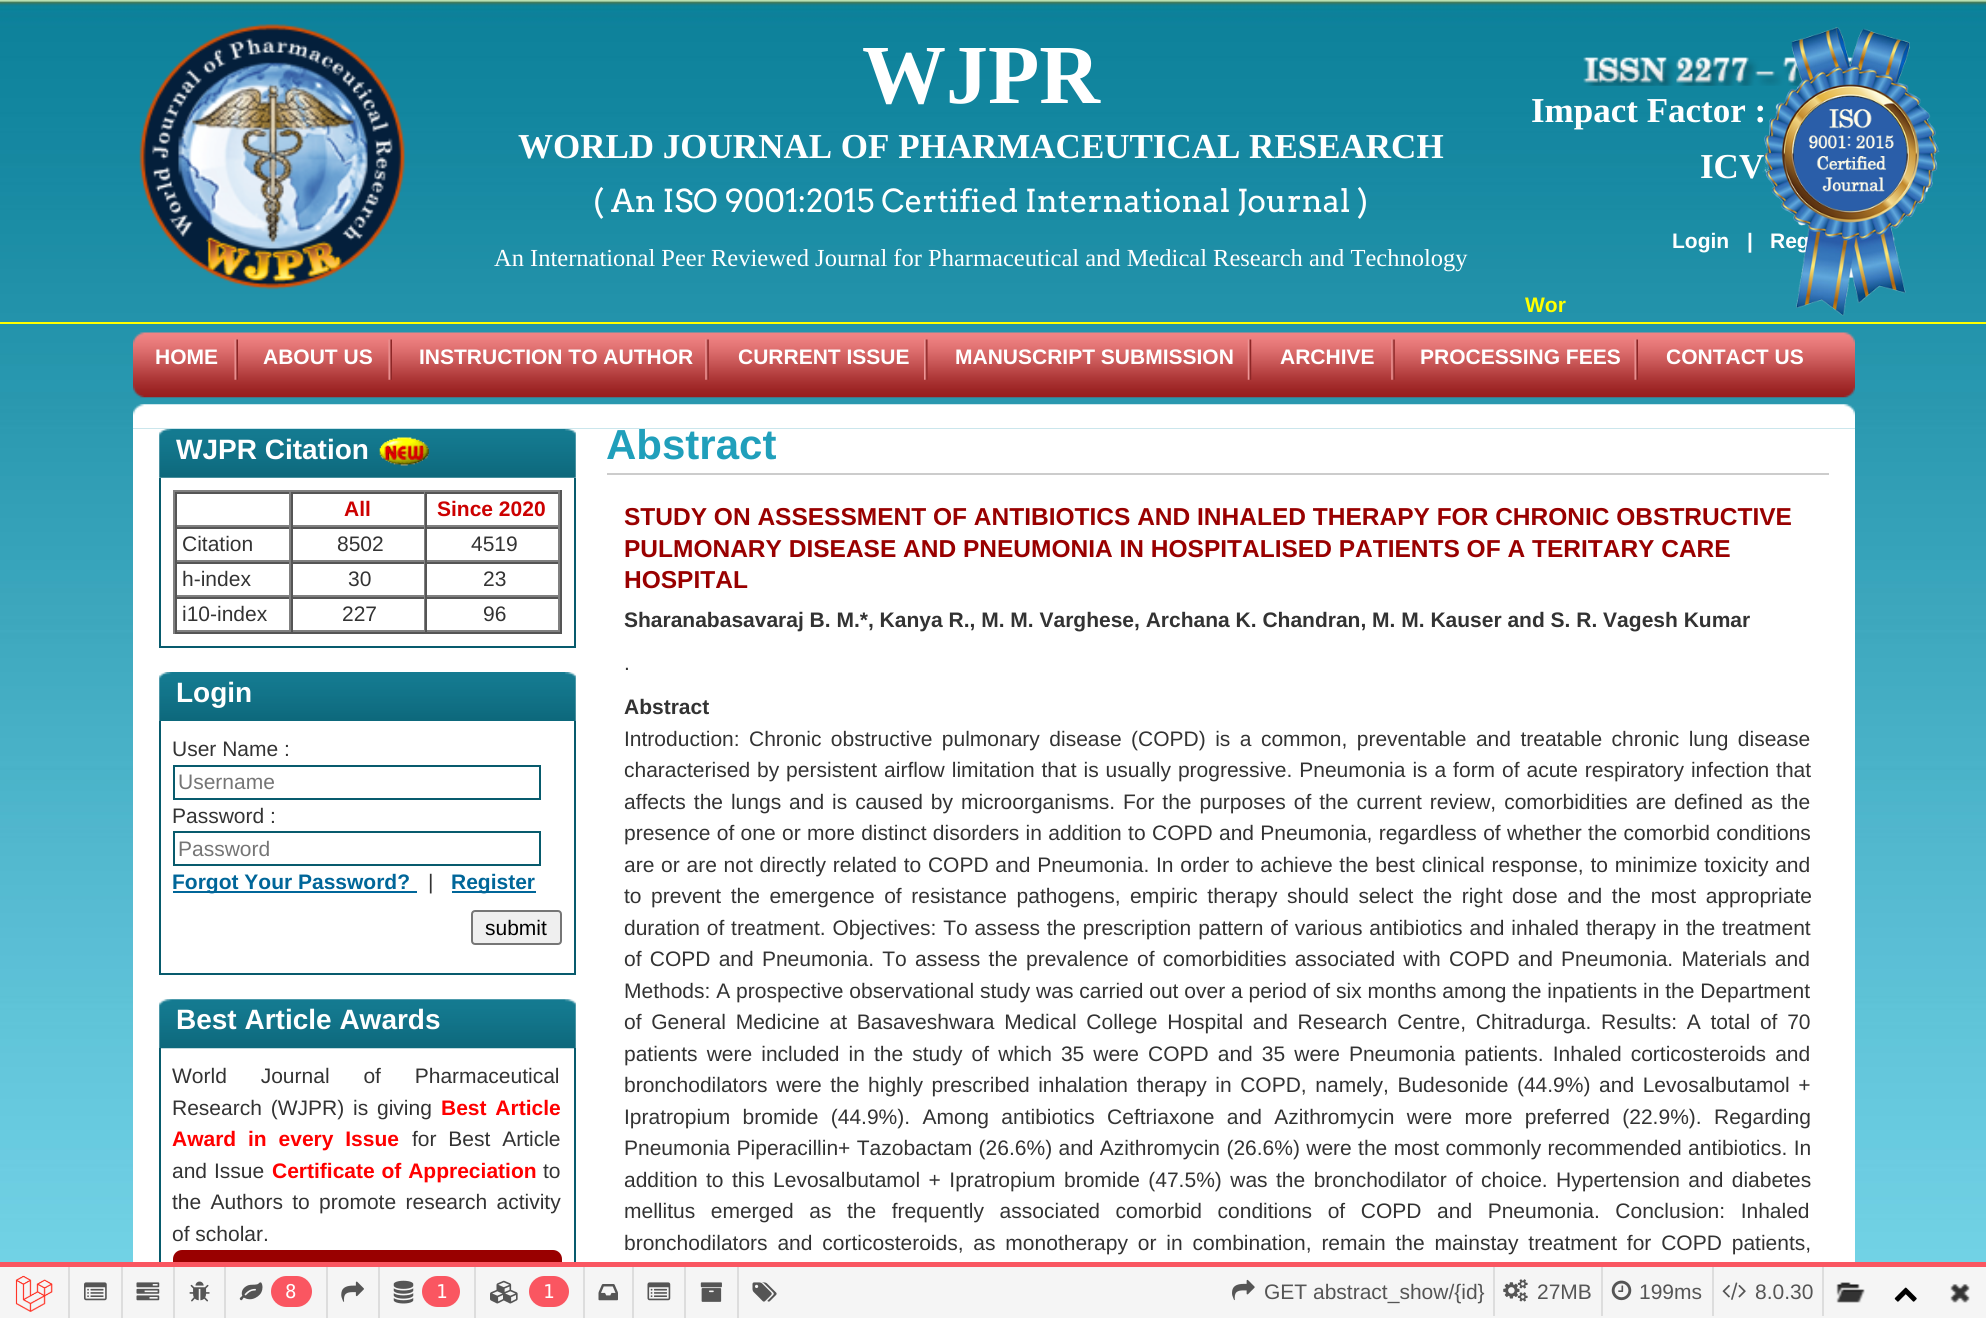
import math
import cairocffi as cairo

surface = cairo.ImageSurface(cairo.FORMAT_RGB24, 1986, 1318)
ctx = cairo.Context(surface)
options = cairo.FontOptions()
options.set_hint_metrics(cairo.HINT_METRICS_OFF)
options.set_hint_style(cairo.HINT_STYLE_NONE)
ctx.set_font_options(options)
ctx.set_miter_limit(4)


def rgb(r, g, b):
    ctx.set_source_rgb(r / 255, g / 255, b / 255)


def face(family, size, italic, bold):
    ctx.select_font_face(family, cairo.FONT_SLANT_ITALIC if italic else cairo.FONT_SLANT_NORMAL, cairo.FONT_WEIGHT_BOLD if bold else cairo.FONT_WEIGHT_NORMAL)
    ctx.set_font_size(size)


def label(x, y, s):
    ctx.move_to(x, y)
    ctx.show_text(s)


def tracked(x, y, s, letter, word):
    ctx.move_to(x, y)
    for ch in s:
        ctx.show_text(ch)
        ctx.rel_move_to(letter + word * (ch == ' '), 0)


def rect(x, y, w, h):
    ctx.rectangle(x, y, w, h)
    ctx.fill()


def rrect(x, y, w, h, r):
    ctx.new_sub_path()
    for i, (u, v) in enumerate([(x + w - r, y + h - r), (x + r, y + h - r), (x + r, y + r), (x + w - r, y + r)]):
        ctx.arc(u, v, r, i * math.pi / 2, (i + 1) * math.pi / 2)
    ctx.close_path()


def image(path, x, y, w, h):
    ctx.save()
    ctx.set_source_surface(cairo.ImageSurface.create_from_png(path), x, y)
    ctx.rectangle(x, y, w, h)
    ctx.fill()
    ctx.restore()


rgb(255, 255, 255)
ctx.paint()
image('image0.png', 0, 0, 1986, 1262)
rgb(255, 255, 0)
rect(0, 322, 1986, 2)
image('image1.png', 139, 24, 266, 266)
face('Liberation Serif', 84, 0, 1)
rgb(255, 255, 255)
label(862, 103, 'WJPR')
face('Liberation Serif', 35, 0, 1)
label(518, 158, 'WORLD JOURNAL OF PHARMACEUTICAL RESEARCH')
face('Arvo', 31.5, 0, 0)
label(593, 212, '( An ISO 9001:2015 Certified International Journal )')
face('Liberation Serif', 24.5, 0, 0)
label(494, 266, 'An International Peer Reviewed Journal for Pharmaceutical and Medical Research and Technology')
image('image3.png', 1583, 57, 271, 29)
face('Liberation Serif', 35, 0, 1)
label(1531, 122, 'Impact Factor :')
label(1700, 178, 'ICV')
face('Liberation Sans', 21, 0, 1)
label(1770, 248, 'Reg')
image('image2.png', 1762, 27, 178, 289)
label(1672, 248, 'Login')
label(1747, 248, '|')
rgb(255, 255, 0)
label(1525, 312, 'Wor')
image('image4.png', 133, 332, 1722, 66)
image('image5.png', 234, 339, 4, 41)
rgb(255, 255, 255)
label(155, 364, 'HOME')
image('image5.png', 388, 339, 4, 41)
label(263, 364, 'ABOUT US')
image('image6.png', 705, 339, 4, 41)
label(419, 364, 'INSTRUCTION TO AUTHOR')
image('image7.png', 924, 339, 4, 41)
label(738, 364, 'CURRENT ISSUE')
image('image8.png', 1247, 339, 5, 41)
label(955, 364, 'MANUSCRIPT SUBMISSION')
image('image6.png', 1391, 339, 4, 41)
label(1280, 364, 'ARCHIVE')
image('image5.png', 1634, 339, 4, 41)
label(1420, 364, 'PROCESSING FEES')
label(1666, 364, 'CONTACT US')
rect(133, 429, 1722, 833)
image('image10.png', 159, 428, 417, 50)
face('Liberation Sans', 42, 0, 1)
rgb(32, 159, 187)
label(606, 459, 'Abstract')
image('image9.png', 133, 404, 1722, 25)
face('Liberation Sans', 28, 0, 1)
rgb(255, 255, 255)
label(176, 459, 'WJPR Citation')
image('image11.png', 379, 437, 50, 29)
rgb(8, 91, 109)
rect(574, 478, 2, 170)
rect(159, 646, 417, 2)
rect(159, 478, 2, 170)
rgb(128, 128, 128)
rect(173, 490, 389, 2)
rgb(85, 85, 85)
rect(560, 490, 2, 144)
rect(173, 632, 389, 2)
rgb(128, 128, 128)
rect(173, 490, 2, 144)
rgb(85, 85, 85)
rect(175, 492, 385, 2)
rgb(128, 128, 128)
rect(289, 492, 2, 35)
rect(175, 525, 116, 2)
rgb(85, 85, 85)
rect(175, 492, 2, 35)
rgb(128, 128, 128)
rect(424, 492, 1, 35)
rect(291, 525, 134, 2)
rgb(85, 85, 85)
rect(291, 492, 2, 35)
face('Liberation Sans', 21, 0, 1)
rgb(204, 0, 0)
label(344, 516, 'All')
rgb(128, 128, 128)
rect(558, 492, 2, 35)
rect(425, 525, 135, 2)
rgb(85, 85, 85)
rect(425, 492, 2, 35)
rgb(204, 0, 0)
label(437, 516, 'Since 2020')
rgb(85, 85, 85)
rect(175, 527, 385, 2)
rgb(128, 128, 128)
rect(289, 527, 2, 35)
rect(175, 560, 116, 2)
rgb(85, 85, 85)
rect(175, 527, 2, 35)
face('Liberation Sans', 21, 0, 0)
rgb(51, 51, 51)
label(182, 551, 'Citation')
rgb(128, 128, 128)
rect(424, 527, 1, 35)
rect(291, 560, 134, 2)
rgb(85, 85, 85)
rect(291, 527, 2, 35)
rgb(51, 51, 51)
label(337, 551, '8502')
rgb(128, 128, 128)
rect(558, 527, 2, 35)
rect(425, 560, 135, 2)
rgb(85, 85, 85)
rect(425, 527, 2, 35)
rgb(51, 51, 51)
label(471, 551, '4519')
rgb(85, 85, 85)
rect(175, 562, 385, 2)
rgb(128, 128, 128)
rect(289, 562, 2, 35)
rect(175, 595, 116, 2)
rgb(85, 85, 85)
rect(175, 562, 2, 35)
rgb(51, 51, 51)
label(182, 586, 'h-index')
rgb(128, 128, 128)
rect(424, 562, 1, 35)
rect(291, 595, 134, 2)
rgb(85, 85, 85)
rect(291, 562, 2, 35)
rgb(51, 51, 51)
label(348, 586, '30')
rgb(128, 128, 128)
rect(558, 562, 2, 35)
rect(425, 595, 135, 2)
rgb(85, 85, 85)
rect(425, 562, 2, 35)
rgb(51, 51, 51)
label(483, 586, '23')
rgb(85, 85, 85)
rect(175, 597, 385, 2)
rgb(128, 128, 128)
rect(289, 597, 2, 35)
rect(175, 630, 116, 2)
rgb(85, 85, 85)
rect(175, 597, 2, 35)
rgb(51, 51, 51)
label(182, 621, 'i10-index')
rgb(128, 128, 128)
rect(424, 597, 1, 35)
rect(291, 630, 134, 2)
rgb(85, 85, 85)
rect(291, 597, 2, 35)
rgb(51, 51, 51)
label(342, 621, '227')
rgb(128, 128, 128)
rect(558, 597, 2, 35)
rect(425, 630, 135, 2)
rgb(85, 85, 85)
rect(425, 597, 2, 35)
rgb(51, 51, 51)
label(483, 621, '96')
image('image12.png', 159, 672, 417, 49)
face('Liberation Sans', 28, 0, 1)
rgb(255, 255, 255)
label(176, 702, 'Login')
rgb(8, 91, 109)
rect(574, 721, 2, 254)
rect(159, 973, 417, 2)
rect(159, 721, 2, 254)
face('Liberation Sans', 21, 0, 0)
rgb(51, 51, 51)
label(172, 756, 'User Name :')
ctx.rectangle(174, 766, 366, 33)
rgb(8, 91, 109)
ctx.stroke()
rgb(117, 117, 117)
label(178, 789, 'Username')
rgb(51, 51, 51)
label(172, 823, 'Password :')
ctx.rectangle(174, 832, 366, 33)
rgb(8, 91, 109)
ctx.stroke()
rgb(117, 117, 117)
label(178, 856, 'Password')
rgb(0, 102, 153)
rect(173, 891, 244, 2)
face('Liberation Sans', 21, 0, 1)
label(172, 889, 'Forgot Your Password?')
face('Liberation Sans', 21, 0, 0)
rgb(51, 51, 51)
label(428, 889, '|')
rgb(0, 102, 153)
rect(452, 891, 84, 2)
face('Liberation Sans', 21, 0, 1)
label(451, 889, 'Register')
rgb(239, 239, 239)
rrect(472, 911, 89, 33, 3)
ctx.fill_preserve()
rgb(118, 118, 118)
ctx.stroke()
face('Liberation Sans', 21, 0, 0)
rgb(0, 0, 0)
label(485, 935, 'submit')
image('image13.png', 159, 999, 417, 50)
face('Liberation Sans', 28, 0, 1)
rgb(255, 255, 255)
label(176, 1029, 'Best Article Awards')
rgb(8, 91, 109)
rect(574, 1048, 2, 214)
rect(159, 1048, 2, 214)
face('Liberation Sans', 21, 0, 0)
rgb(51, 51, 51)
tracked(172, 1083, 'World Journal of Pharmaceutical', 0, 28)
tracked(172, 1115, 'Research (WJPR) is giving', 0, 3)
face('Liberation Sans', 21, 0, 1)
rgb(255, 0, 0)
tracked(441, 1115, 'Best Article', 0, 3)
tracked(172, 1146, 'Award in every Issue', 0, 6)
face('Liberation Sans', 21, 0, 0)
rgb(51, 51, 51)
tracked(412, 1146, 'for Best Article', 0, 6)
tracked(172, 1178, 'and Issue', 0, 1)
face('Liberation Sans', 21, 0, 1)
rgb(255, 0, 0)
tracked(272, 1178, 'Certificate of Appreciation', 0, 1)
face('Liberation Sans', 21, 0, 0)
rgb(51, 51, 51)
label(543, 1178, 'to')
tracked(172, 1209, 'the Authors to promote research activity', 0, 3.5)
label(172, 1241, 'of scholar.')
rgb(153, 0, 0)
rrect(173, 1250, 389, 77, 9)
ctx.fill()
rgb(204, 204, 204)
rect(607, 473, 1222, 2)
face('Liberation Sans', 24.5, 0, 1)
rgb(153, 0, 0)
label(624, 525, 'STUDY ON ASSESSMENT OF ANTIBIOTICS AND INHALED THERAPY FOR CHRONIC OBSTRUCTIVE')
label(624, 557, 'PULMONARY DISEASE AND PNEUMONIA IN HOSPITALISED PATIENTS OF A TERITARY CARE')
label(624, 588, 'HOSPITAL')
face('Liberation Sans', 21, 0, 1)
rgb(51, 51, 51)
label(624, 627, 'Sharanabasavaraj B. M.*, Kanya R., M. M. Varghese, Archana K. Chandran, M. M. Kauser and S. R. Vagesh Kumar')
face('Liberation Sans', 21, 0, 0)
label(624, 670, '.')
face('Liberation Sans', 21, 0, 1)
label(624, 714, 'Abstract')
face('Liberation Sans', 21, 0, 0)
tracked(624, 746, 'Introduction: Chronic obstructive pulmonary disease (COPD) is a common, preventable and treatable chronic lung disease', 0, 3.6)
tracked(624, 777, 'characterised by persistent airflow limitation that is usually progressive. Pneumonia is a form of acute respiratory infection that', 0, 1.1)
tracked(624, 809, 'affects the lungs and is caused by microorganisms. For the purposes of the current review, comorbidities are defined as the', 0, 2.1)
tracked(624, 840, 'presence of one or more distinct disorders in addition to COPD and Pneumonia, regardless of whether the comorbid conditions', 0, 0.5)
tracked(624, 872, 'are or are not directly related to COPD and Pneumonia. In order to achieve the best clinical response, to minimize toxicity and', 0, 0.9)
tracked(624, 903, 'to prevent the emergence of resistance pathogens, empiric therapy should select the right dose and the most appropriate', 0, 3.75)
tracked(624, 935, 'duration of treatment. Objectives: To assess the prescription pattern of various antibiotics and inhaled therapy in the treatment', 0, 1)
tracked(624, 966, 'of COPD and Pneumonia. To assess the prevalence of comorbidities associated with COPD and Pneumonia. Materials and', 0, 2.4)
label(624, 998, 'Methods: A prospective observational study was carried out over a period of six months among the inpatients in the Department')
tracked(624, 1029, 'of General Medicine at Basaveshwara Medical College Hospital and Research Centre, Chitradurga. Results: A total of 70', 0, 3.9)
tracked(624, 1061, 'patients were included in the study of which 35 were COPD and 35 were Pneumonia patients. Inhaled corticosteroids and', 0, 3.25)
tracked(624, 1092, 'bronchodilators were the highly prescribed inhalation therapy in COPD, namely, Budesonide (44.9%) and Levosalbutamol +', 0, 2.75)
tracked(624, 1124, 'Ipratropium bromide (44.9%). Among antibiotics Ceftriaxone and Azithromycin were more preferred (22.9%). Regarding', 0, 6.5)
tracked(624, 1155, 'Pneumonia Piperacillin+ Tazobactam (26.6%) and Azithromycin (26.6%) were the most commonly recommended antibiotics. In', 0, 0.5)
tracked(624, 1187, 'addition to this Levosalbutamol + Ipratropium bromide (47.5%) was the bronchodilator of choice. Hypertension and diabetes', 0, 2.6)
tracked(624, 1218, 'mellitus emerged as the frequently associated comorbid conditions of COPD and Pneumonia. Conclusion: Inhaled', 0, 9.75)
tracked(624, 1250, 'bronchodilators and corticosteroids, as monotherapy or in combination, remain the mainstay treatment for COPD patients,', 0, 4)
rgb(250, 86, 97)
rect(0, 1262, 1986, 5)
rgb(245, 245, 245)
rect(0, 1267, 1986, 51)
image('image14.png', 15, 1275, 38, 37)
rgb(221, 221, 221)
rect(68, 1267, 2, 51)
image('image15.png', 84, 1282, 23, 19)
rect(121, 1267, 2, 51)
image('image16.png', 136, 1282, 24, 19)
rect(173, 1267, 2, 51)
image('image17.png', 189, 1281, 21, 21)
rect(224, 1267, 2, 51)
image('image18.png', 239, 1282, 24, 19)
rgb(250, 86, 97)
rrect(271, 1276, 41, 31, 15.5)
ctx.fill()
face('DejaVu Sans Mono', 19, 0, 0)
rgb(255, 255, 255)
label(285, 1298, '8')
rgb(221, 221, 221)
rect(326, 1267, 2, 51)
image('image19.png', 341, 1281, 23, 21)
rect(378, 1267, 2, 51)
image('image20.png', 393, 1280, 21, 24)
rgb(250, 86, 97)
rrect(422, 1276, 38, 31, 15.5)
ctx.fill()
rgb(255, 255, 255)
label(436, 1298, '1')
rgb(221, 221, 221)
rect(474, 1267, 2, 51)
image('image21.png', 490, 1280, 28, 24)
rgb(250, 86, 97)
rrect(529, 1276, 40, 31, 15.5)
ctx.fill()
rgb(255, 255, 255)
label(543, 1298, '1')
rgb(221, 221, 221)
rect(583, 1267, 2, 51)
image('image22.png', 598, 1284, 20, 17)
rect(632, 1267, 2, 51)
image('image23.png', 647, 1282, 24, 19)
rect(684, 1267, 2, 51)
image('image24.png', 700, 1282, 22, 20)
rect(737, 1267, 2, 51)
image('image25.png', 752, 1282, 25, 20)
rect(1493, 1267, 2, 49)
image('image26.png', 1232, 1279, 23, 22)
face('Liberation Sans', 21, 0, 0)
rgb(85, 85, 85)
label(1264, 1299, 'GET abstract_show/{id}')
rgb(221, 221, 221)
rect(1601, 1267, 2, 49)
image('image27.png', 1503, 1279, 25, 23)
rgb(85, 85, 85)
label(1537, 1299, '27MB')
rgb(221, 221, 221)
rect(1712, 1267, 2, 49)
image('image28.png', 1611, 1280, 21, 21)
rgb(85, 85, 85)
label(1639, 1299, '199ms')
rgb(221, 221, 221)
rect(1822, 1267, 2, 49)
image('image29.png', 1722, 1282, 24, 18)
rgb(85, 85, 85)
label(1755, 1299, '8.0.30')
image('image30.png', 1836, 1282, 29, 21)
image('image31.png', 1894, 1287, 23, 15)
image('image32.png', 1950, 1284, 20, 19)
surface.write_to_png('render.png')
